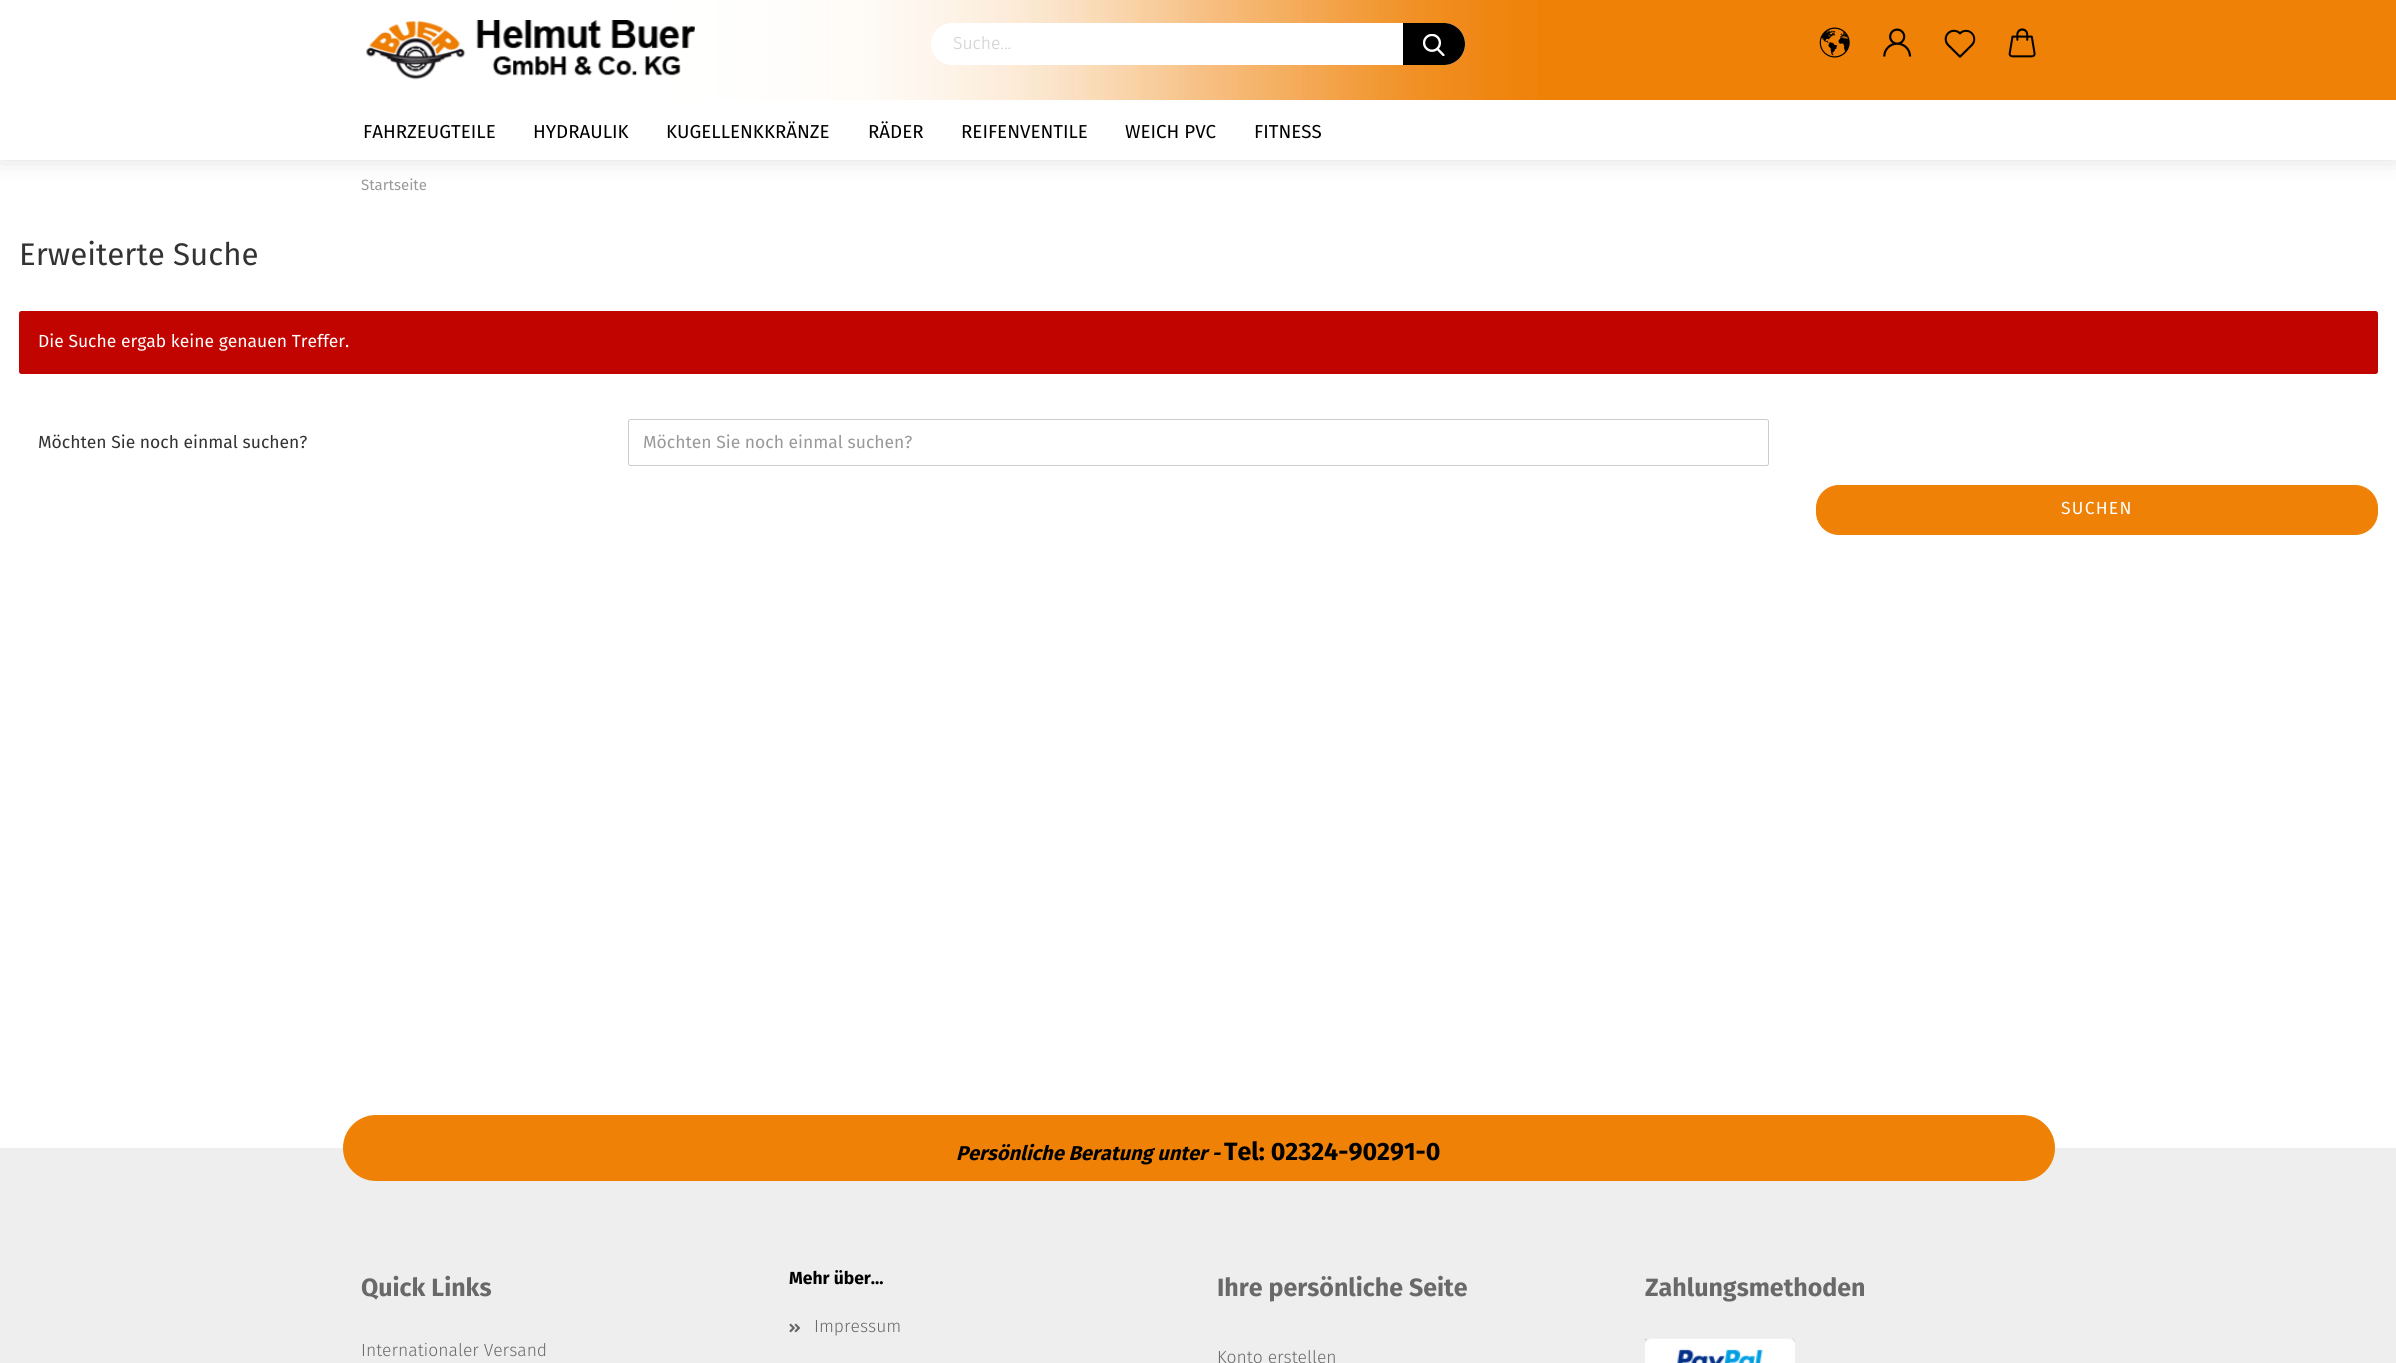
import math
import cairocffi as cairo

surface = cairo.ImageSurface(cairo.FORMAT_RGB24, 2396, 1363)
ctx = cairo.Context(surface)
options = cairo.FontOptions()
options.set_hint_metrics(cairo.HINT_METRICS_OFF)
options.set_hint_style(cairo.HINT_STYLE_NONE)
ctx.set_font_options(options)
ctx.set_miter_limit(4)


def rgb(r, g, b):
    ctx.set_source_rgb(r / 255, g / 255, b / 255)


def face(family, size, italic, bold):
    ctx.select_font_face(family, cairo.FONT_SLANT_ITALIC if italic else cairo.FONT_SLANT_NORMAL, cairo.FONT_WEIGHT_BOLD if bold else cairo.FONT_WEIGHT_NORMAL)
    ctx.set_font_size(size)


def label(x, y, s):
    ctx.move_to(x, y)
    ctx.show_text(s)


def tracked(x, y, s, letter, word):
    ctx.move_to(x, y)
    for ch in s:
        ctx.show_text(ch)
        ctx.rel_move_to(letter + word * (ch == ' '), 0)


def rect(x, y, w, h):
    ctx.rectangle(x, y, w, h)
    ctx.fill()


def rrect(x, y, w, h, r):
    ctx.new_sub_path()
    for i, (u, v) in enumerate([(x + w - r, y + h - r), (x + r, y + h - r), (x + r, y + r), (x + w - r, y + r)]):
        ctx.arc(u, v, r, i * math.pi / 2, (i + 1) * math.pi / 2)
    ctx.close_path()


def soft_shadow(x, y, w, h, r, blur, alpha):
    ctx.push_group_with_content(cairo.CONTENT_ALPHA)
    ctx.set_operator(cairo.OPERATOR_SOURCE)
    for i in range(15, -16, -2):
        e = blur * i / 6
        if min(w, h) + 2 * e > 0:
            ctx.set_source_rgba(0, 0, 0, alpha * math.erfc((i - 1) / 8.5) / 2)
            rrect(x - e, y - e, w + 2 * e, h + 2 * e, max(0, min(r + e + blur * .6, min(w, h) / 2 + e)))
            ctx.fill()
    ctx.mask(ctx.pop_group())


def image(path, x, y, w, h):
    ctx.save()
    ctx.set_source_surface(cairo.ImageSurface.create_from_png(path), x, y)
    ctx.rectangle(x, y, w, h)
    ctx.fill()
    ctx.restore()


rgb(255, 255, 255)
ctx.paint()
rgb(0, 0, 0)
soft_shadow(0, 0, 2396, 148, 0, 15.5, 0.3)
rgb(239, 129, 6)
rect(1538, 0, 858, 100)
image('image0.png', 0, 0, 1538, 100)
image('image1.png', 366, 20, 329, 60)
rgb(255, 255, 255)
rrect(932.5, 24.5, 531, 39, 19.5)
ctx.fill_preserve()
ctx.set_line_width(3)
ctx.stroke()
face('Fira Sans Light', 17.5, 0, 0)
rgb(204, 204, 204)
label(953, 49, 'Suche...')
rgb(0, 0, 0)
ctx.new_path()
ctx.move_to(1403, 23)
ctx.line_to(1444, 23)
ctx.curve_to(1455.5, 23, 1465, 32.5, 1465, 44)
ctx.curve_to(1465, 55.5, 1455.5, 65, 1444, 65)
ctx.line_to(1403, 65)
ctx.close_path()
ctx.fill()
image('image2.png', 1423, 34, 22, 22)
image('image3.png', 1819, 27, 31, 31)
image('image4.png', 1883, 28, 29, 29)
image('image5.png', 1944, 29, 32, 29)
image('image6.png', 2008, 28, 28, 30)
rgb(255, 255, 255)
rect(0, 100, 2396, 60)
face('Fira Sans', 18.75, 0, 0)
rgb(0, 0, 0)
label(363, 138, 'FAHRZEUGTEILE')
label(533, 138, 'HYDRAULIK')
label(666, 138, 'KUGELLENKKRÄNZE')
label(868, 138, 'RÄDER')
label(961, 138, 'REIFENVENTILE')
label(1125, 138, 'WEICH PVC')
label(1254, 138, 'FITNESS')
face('Fira Sans', 15, 0, 0)
rgb(153, 153, 153)
label(361, 190, 'Startseite')
face('Fira Sans', 31.25, 0, 0)
rgb(51, 51, 51)
label(19, 265, 'Erweiterte Suche')
rgb(194, 4, 0)
rrect(19, 311, 2359, 63, 2.5)
ctx.fill()
face('Fira Sans', 17.5, 0, 0)
rgb(255, 255, 255)
label(38, 347, 'Die Suche ergab keine genauen Treffer.')
rgb(51, 51, 51)
label(38, 448, 'Möchten Sie noch einmal suchen?')
rrect(628.5, 419.5, 1140, 46, 2)
rgb(204, 204, 204)
ctx.set_line_width(1)
ctx.stroke()
rgb(153, 153, 153)
label(643, 448, 'Möchten Sie noch einmal suchen?')
rgb(239, 129, 6)
rrect(1816.5, 485.5, 561, 49, 22.5)
ctx.fill_preserve()
ctx.stroke()
rgb(255, 255, 255)
tracked(2061, 514, 'SUCHEN', 1.25, 0)
rgb(238, 238, 238)
rect(0, 1148, 2396, 215)
rgb(239, 129, 6)
rrect(343, 1115, 1712, 66, 33)
ctx.fill()
face('Fira Sans', 20, 1, 1)
rgb(0, 0, 0)
label(956, 1160, 'Persönliche Beratung unter -')
face('Fira Sans', 25, 0, 1)
label(1224, 1160, 'Tel: 02324-90291-0')
rgb(105, 105, 105)
label(361, 1296, 'Quick Links')
face('Fira Sans Light', 17.5, 0, 0)
label(361, 1356, 'Internationaler Versand')
face('Fira Sans', 17.5, 0, 1)
rgb(0, 0, 0)
label(789, 1284, 'Mehr über...')
image('image7.png', 789, 1323, 11, 10)
face('Fira Sans Light', 17.5, 0, 0)
rgb(105, 105, 105)
label(814, 1332, 'Impressum')
face('Fira Sans', 25, 0, 1)
label(1217, 1296, 'Ihre persönliche Seite')
face('Fira Sans Light', 17.5, 0, 0)
label(1217, 1363, 'Konto erstellen')
face('Fira Sans', 25, 0, 1)
label(1645, 1296, 'Zahlungsmethoden')
image('image8.png', 1645, 1338, 150, 25)
surface.write_to_png('render.png')
